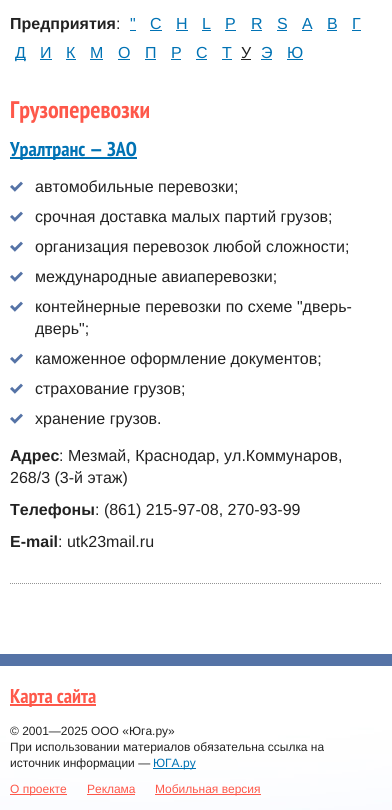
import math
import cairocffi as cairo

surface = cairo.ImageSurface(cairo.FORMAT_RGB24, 392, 810)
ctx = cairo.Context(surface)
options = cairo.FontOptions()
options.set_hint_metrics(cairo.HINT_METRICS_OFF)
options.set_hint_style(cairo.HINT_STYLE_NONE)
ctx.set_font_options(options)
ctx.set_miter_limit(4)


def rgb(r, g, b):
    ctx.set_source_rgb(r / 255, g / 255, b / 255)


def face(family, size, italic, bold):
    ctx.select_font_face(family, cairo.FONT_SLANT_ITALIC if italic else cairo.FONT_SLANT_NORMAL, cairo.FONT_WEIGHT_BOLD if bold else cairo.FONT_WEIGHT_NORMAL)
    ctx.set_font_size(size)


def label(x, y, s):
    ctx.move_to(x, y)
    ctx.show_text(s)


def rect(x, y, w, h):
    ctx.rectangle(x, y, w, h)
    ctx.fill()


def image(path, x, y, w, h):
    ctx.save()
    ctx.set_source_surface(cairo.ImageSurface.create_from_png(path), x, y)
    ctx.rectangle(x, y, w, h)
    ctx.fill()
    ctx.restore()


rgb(255, 255, 255)
ctx.paint()
face('Liberation Sans', 16, 0, 1)
rgb(34, 34, 34)
label(10, 29, 'Предприятия')
face('Liberation Sans', 16, 0, 0)
label(116, 29, ':')
rgb(0, 114, 180)
label(130, 29, '"')
rect(130, 30, 6, 1)
label(150, 29, 'C')
rect(150, 30, 12, 1)
label(176, 29, 'H')
rect(176, 30, 12, 1)
label(202, 29, 'L')
rect(202, 30, 9, 1)
label(225, 29, 'P')
rect(225, 30, 11, 1)
label(251, 29, 'R')
rect(251, 30, 11, 1)
label(277, 29, 'S')
rect(277, 30, 10, 1)
label(302, 29, 'А')
rect(302, 30, 10, 1)
label(327, 29, 'В')
rect(327, 30, 10, 1)
label(352, 29, 'Г')
rect(352, 30, 9, 1)
rect(15, 59, 11, 1)
label(15, 58, 'Д')
label(40, 58, 'И')
rect(40, 59, 12, 1)
label(66, 58, 'К')
rect(66, 59, 10, 1)
label(90, 58, 'М')
rect(90, 59, 13, 1)
label(118, 58, 'О')
rect(118, 59, 12, 1)
label(145, 58, 'П')
rect(145, 59, 11, 1)
label(171, 58, 'Р')
rect(171, 59, 10, 1)
label(196, 58, 'С')
rect(196, 59, 11, 1)
label(222, 58, 'Т')
rect(222, 59, 10, 1)
rgb(34, 34, 34)
label(241, 58, 'У')
rect(241, 59, 10, 1)
rgb(0, 114, 180)
label(261, 58, 'Э')
rect(261, 59, 11, 1)
label(287, 58, 'Ю')
rect(287, 59, 16, 1)
face('PT Sans Narrow', 24, 0, 1)
rgb(254, 88, 74)
label(10, 118, 'Грузоперевозки')
ctx.new_path()
ctx.move_to(10, 583.5)
ctx.line_to(382, 583.5)
rgb(147, 147, 147)
ctx.set_line_width(1)
ctx.set_dash([1, 1])
ctx.stroke()
rgb(0, 114, 180)
rect(10, 157, 127, 2)
face('PT Sans Narrow', 20, 0, 1)
label(10, 156, 'Уралтранс — ЗАО')
image('image0.png', 10, 181, 13, 11)
face('Liberation Sans', 16, 0, 0)
rgb(34, 34, 34)
label(35, 192, 'автомобильные перевозки;')
image('image0.png', 10, 211, 13, 11)
label(35, 222, 'срочная доставка малых партий грузов;')
image('image0.png', 10, 241, 13, 11)
label(35, 252, 'организация перевозок любой сложности;')
image('image0.png', 10, 271, 13, 11)
label(35, 282, 'международные авиаперевозки;')
image('image0.png', 10, 301, 13, 11)
label(35, 312, 'контейнерные перевозки по схеме "дверь-')
label(35, 334, 'дверь";')
image('image0.png', 10, 353, 13, 11)
label(35, 364, 'каможенное оформление документов;')
image('image0.png', 10, 383, 13, 11)
label(35, 394, 'страхование грузов;')
image('image0.png', 10, 413, 13, 11)
label(35, 424, 'хранение грузов.')
face('Liberation Sans', 16, 0, 1)
label(10, 461, 'Адрес')
face('Liberation Sans', 16, 0, 0)
label(59, 461, ': Мезмай, Краснодар, ул.Коммунаров,')
label(10, 483, '268/3 (3-й этаж)')
face('Liberation Sans', 16, 0, 1)
label(10, 515, 'Телефоны')
face('Liberation Sans', 16, 0, 0)
label(95, 515, ': (861) 215-97-08, 270-93-99')
face('Liberation Sans', 16, 0, 1)
label(10, 547, 'E-mail')
face('Liberation Sans', 16, 0, 0)
label(58, 547, ': utk23mail.ru')
image('image1.png', 0, 666, 392, 144)
rgb(85, 115, 166)
rect(0, 654, 392, 12)
rgb(254, 88, 74)
rect(10, 704, 86, 2)
face('PT Sans Narrow', 20, 0, 1)
label(10, 703, 'Карта сайта')
face('Liberation Sans', 12, 0, 0)
rgb(34, 34, 34)
label(10, 735, '© 2001—2025 ООО «Юга.ру»')
label(10, 751, 'При использовании материалов обязательна ссылка на')
label(10, 767, 'источник информации —')
rgb(0, 114, 180)
rect(153, 768, 43, 1)
label(153, 767, 'ЮГА.ру')
rgb(254, 88, 74)
rect(10, 794, 57, 1)
label(10, 793, 'О проекте')
label(87, 793, 'Реклама')
rect(87, 794, 48, 1)
rect(155, 794, 106, 1)
label(155, 793, 'Мобильная версия')
surface.write_to_png('render.png')
